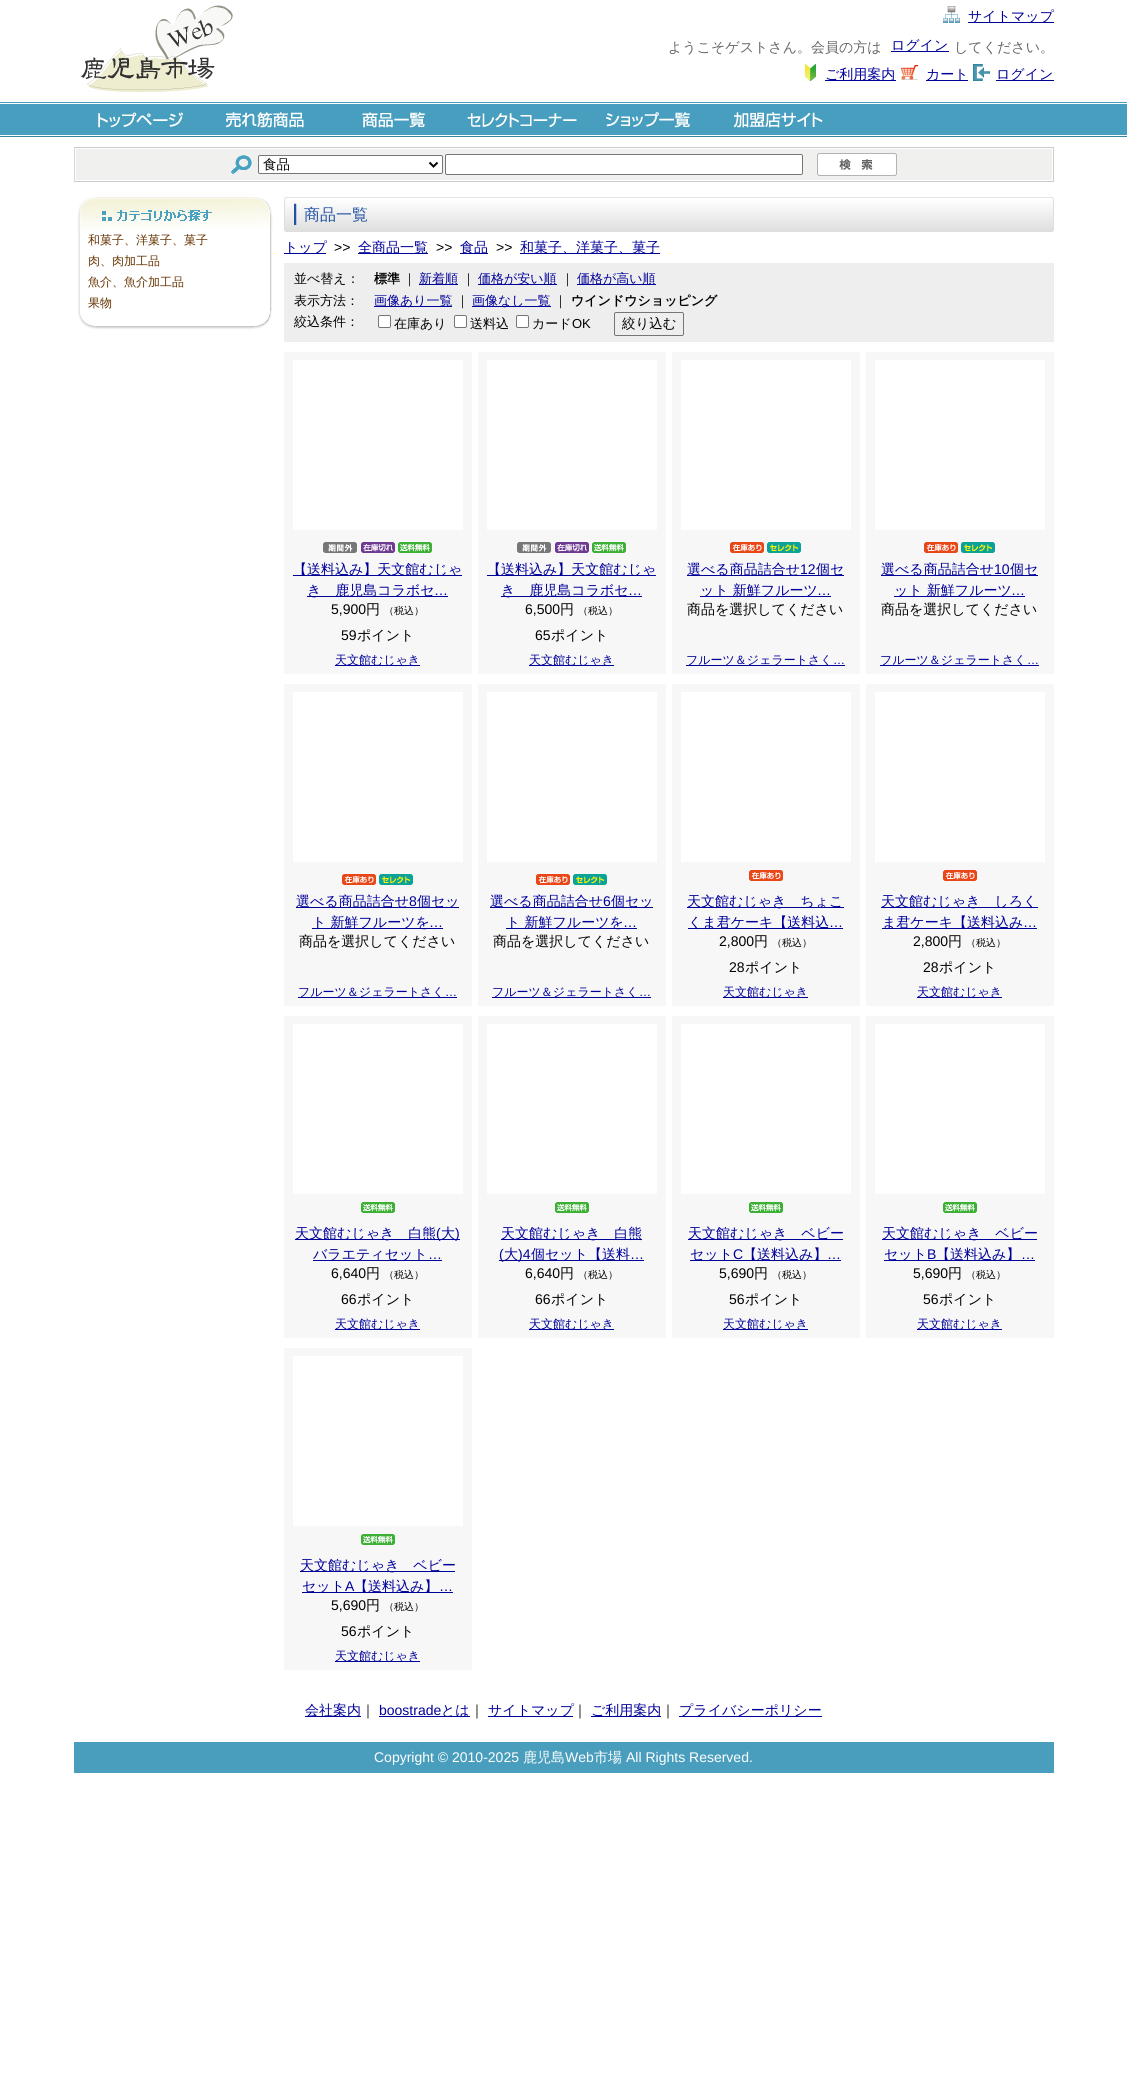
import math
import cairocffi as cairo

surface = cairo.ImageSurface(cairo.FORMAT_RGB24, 1127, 2073)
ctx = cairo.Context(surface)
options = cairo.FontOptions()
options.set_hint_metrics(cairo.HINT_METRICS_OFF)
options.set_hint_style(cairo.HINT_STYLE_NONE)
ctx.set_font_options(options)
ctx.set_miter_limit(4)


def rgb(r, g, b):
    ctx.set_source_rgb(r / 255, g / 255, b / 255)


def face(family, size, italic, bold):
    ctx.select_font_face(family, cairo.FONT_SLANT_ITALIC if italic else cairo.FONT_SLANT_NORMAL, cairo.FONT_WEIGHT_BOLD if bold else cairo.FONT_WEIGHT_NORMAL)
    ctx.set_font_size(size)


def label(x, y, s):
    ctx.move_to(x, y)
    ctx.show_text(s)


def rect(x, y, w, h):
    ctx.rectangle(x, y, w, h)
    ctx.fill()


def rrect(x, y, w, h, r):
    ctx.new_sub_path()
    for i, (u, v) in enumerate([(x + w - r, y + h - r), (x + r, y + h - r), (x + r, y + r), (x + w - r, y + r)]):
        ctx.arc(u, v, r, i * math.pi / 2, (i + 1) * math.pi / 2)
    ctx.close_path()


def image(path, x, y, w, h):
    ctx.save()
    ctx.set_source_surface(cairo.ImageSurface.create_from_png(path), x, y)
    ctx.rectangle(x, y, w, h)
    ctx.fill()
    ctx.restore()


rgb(255, 255, 255)
ctx.paint()
image('image0.png', 0, 102, 1127, 35)
image('image1.png', 80, 5, 153, 88)
image('image2.png', 943, 6, 17, 17)
rgb(0, 0, 153)
rect(968, 22, 86, 1)
face('WenQuanYi Zen Hei Medium', 14, 0, 0)
label(968, 21, 'サイトマップ')
rgb(102, 102, 102)
label(668, 52, 'ようこそゲストさん。会員の方は')
rgb(0, 0, 153)
rect(891, 51, 58, 1)
label(891, 50, 'ログイン')
rgb(102, 102, 102)
label(954, 52, 'してください。')
image('image3.png', 805, 64, 11, 17)
rgb(0, 0, 153)
rect(825, 80, 71, 1)
label(825, 79, 'ご利用案内')
image('image4.png', 901, 65, 17, 15)
rect(926, 80, 42, 1)
label(926, 79, 'カート')
image('image5.png', 973, 64, 17, 17)
rect(996, 80, 58, 1)
label(996, 79, 'ログイン')
image('image6.png', 98, 112, 85, 16)
image('image7.png', 226, 112, 78, 16)
image('image8.png', 362, 112, 63, 16)
image('image9.png', 467, 113, 110, 15)
image('image10.png', 605, 112, 85, 16)
image('image11.png', 733, 112, 90, 16)
image('image12.png', 74, 147, 980, 35)
image('image13.png', 231, 155, 21, 19)
rgb(255, 255, 255)
rrect(258.5, 155.5, 184, 18, 1.5)
ctx.fill_preserve()
rgb(118, 118, 118)
ctx.set_line_width(1)
ctx.stroke()
ctx.new_path()
ctx.move_to(429.5, 162.5)
ctx.line_to(433.5, 166.5)
ctx.line_to(437.5, 162.5)
rgb(0, 0, 0)
ctx.set_line_width(2)
ctx.stroke()
face('WenQuanYi Zen Hei Medium', 13.5, 0, 0)
label(263, 169, '食品')
rgb(255, 255, 255)
rrect(445.5, 154.5, 357, 20, 1.5)
ctx.fill_preserve()
rgb(118, 118, 118)
ctx.set_line_width(1)
ctx.stroke()
image('image14.png', 817, 153, 80, 23)
image('image15.png', 78, 231, 194, 77)
image('image16.png', 77, 197, 196, 34)
image('image17.png', 78, 308, 194, 27)
face('WenQuanYi Zen Hei Medium', 12, 0, 0)
rgb(102, 51, 0)
label(88, 244, '和菓子、洋菓子、菓子')
label(88, 265, '肉、肉加工品')
label(88, 286, '魚介、魚介加工品')
label(88, 307, '果物')
image('image18.png', 284, 197, 770, 35)
face('WenQuanYi Zen Hei Medium', 16, 0, 0)
rgb(34, 83, 164)
label(304, 220, '商品一覧')
rgb(0, 0, 153)
rect(284, 253, 42, 1)
face('WenQuanYi Zen Hei Medium', 14, 0, 0)
label(284, 252, 'トップ')
face('Liberation Sans', 14, 0, 0)
rgb(0, 0, 0)
label(334, 252, '>>')
rgb(0, 0, 153)
rect(358, 253, 70, 1)
face('WenQuanYi Zen Hei Medium', 14, 0, 0)
label(358, 252, '全商品一覧')
face('Liberation Sans', 14, 0, 0)
rgb(0, 0, 0)
label(436, 252, '>>')
rgb(0, 0, 153)
rect(460, 253, 28, 1)
face('WenQuanYi Zen Hei Medium', 14, 0, 0)
label(460, 252, '食品')
face('Liberation Sans', 14, 0, 0)
rgb(0, 0, 0)
label(496, 252, '>>')
rgb(0, 0, 153)
rect(520, 253, 140, 1)
face('WenQuanYi Zen Hei Medium', 14, 0, 0)
label(520, 252, '和菓子、洋菓子、菓子')
rgb(238, 238, 238)
rect(284, 263, 770, 79)
face('WenQuanYi Zen Hei Medium', 13, 0, 0)
rgb(0, 0, 0)
label(294, 283, '並べ替え：')
face('WenQuanYi Zen Hei', 13, 0, 1)
label(374, 283, '標準')
face('WenQuanYi Zen Hei Medium', 13, 0, 0)
label(403, 283, '｜')
rgb(0, 0, 153)
rect(419, 284, 39, 1)
label(419, 283, '新着順')
rgb(0, 0, 0)
label(462, 283, '｜')
rgb(0, 0, 153)
rect(478, 284, 79, 1)
label(478, 283, '価格が安い順')
rgb(0, 0, 0)
label(561, 283, '｜')
rgb(0, 0, 153)
rect(577, 284, 79, 1)
label(577, 283, '価格が高い順')
rgb(0, 0, 0)
label(294, 305, '表示方法：')
rgb(0, 0, 153)
rect(374, 306, 78, 1)
label(374, 305, '画像あり一覧')
rgb(0, 0, 0)
label(456, 305, '｜')
rgb(0, 0, 153)
rect(472, 306, 79, 1)
label(472, 305, '画像なし一覧')
rgb(0, 0, 0)
label(554, 305, '｜')
face('WenQuanYi Zen Hei', 13, 0, 1)
label(571, 305, 'ウインドウショッピング')
face('WenQuanYi Zen Hei Medium', 13, 0, 0)
label(294, 326, '絞込条件：')
rgb(255, 255, 255)
rrect(378.5, 315.5, 12, 12, 1.5)
ctx.fill_preserve()
rgb(118, 118, 118)
ctx.stroke()
rgb(0, 0, 0)
label(394, 328, '在庫あり')
rgb(255, 255, 255)
rrect(454.5, 315.5, 12, 12, 1.5)
ctx.fill_preserve()
rgb(118, 118, 118)
ctx.stroke()
rgb(0, 0, 0)
label(470, 328, '送料込')
rgb(255, 255, 255)
rrect(516.5, 315.5, 12, 12, 1.5)
ctx.fill_preserve()
rgb(118, 118, 118)
ctx.stroke()
rgb(0, 0, 0)
label(532, 328, 'カード')
face('Liberation Sans', 13, 0, 0)
label(572, 328, 'OK')
rrect(614.5, 312.5, 69, 23, 1.5)
rgb(118, 118, 118)
ctx.stroke()
face('WenQuanYi Zen Hei Medium', 13.5, 0, 0)
rgb(0, 0, 0)
label(622, 328, '絞り込む')
rgb(247, 247, 247)
rect(284, 352, 188, 322)
rgb(255, 255, 255)
rect(293, 360, 170, 170)
image('image19.png', 323, 542, 34, 11)
image('image20.png', 361, 542, 34, 11)
image('image21.png', 398, 542, 34, 11)
rgb(0, 0, 153)
rect(293, 575, 169, 1)
face('WenQuanYi Zen Hei Medium', 14, 0, 0)
label(293, 574, '【送料込み】天文館むじゃ')
rect(307, 596, 141, 1)
label(307, 595, 'き　鹿児島コラボセ')
face('Liberation Sans', 14, 0, 0)
label(434, 595, '…')
rgb(0, 0, 0)
label(331, 614, '5,900')
face('WenQuanYi Zen Hei Medium', 14, 0, 0)
label(366, 614, '円')
face('WenQuanYi Zen Hei Medium', 10, 0, 0)
label(384, 614, '（税込）')
face('Liberation Sans', 14, 0, 0)
label(341, 640, '59')
face('WenQuanYi Zen Hei Medium', 14, 0, 0)
label(357, 640, 'ポイント')
rgb(0, 0, 153)
rect(335, 665, 85, 1)
face('WenQuanYi Zen Hei Medium', 12, 0, 0)
label(335, 664, '天文館むじゃき')
rgb(247, 247, 247)
rect(478, 352, 188, 322)
rgb(255, 255, 255)
rect(487, 360, 170, 170)
image('image19.png', 517, 542, 34, 11)
image('image20.png', 555, 542, 34, 11)
image('image21.png', 592, 542, 34, 11)
rgb(0, 0, 153)
rect(487, 575, 169, 1)
face('WenQuanYi Zen Hei Medium', 14, 0, 0)
label(487, 574, '【送料込み】天文館むじゃ')
rect(501, 596, 141, 1)
label(501, 595, 'き　鹿児島コラボセ')
face('Liberation Sans', 14, 0, 0)
label(628, 595, '…')
rgb(0, 0, 0)
label(525, 614, '6,500')
face('WenQuanYi Zen Hei Medium', 14, 0, 0)
label(560, 614, '円')
face('WenQuanYi Zen Hei Medium', 10, 0, 0)
label(578, 614, '（税込）')
face('Liberation Sans', 14, 0, 0)
label(535, 640, '65')
face('WenQuanYi Zen Hei Medium', 14, 0, 0)
label(551, 640, 'ポイント')
rgb(0, 0, 153)
rect(529, 665, 85, 1)
face('WenQuanYi Zen Hei Medium', 12, 0, 0)
label(529, 664, '天文館むじゃき')
rgb(247, 247, 247)
rect(672, 352, 188, 322)
rgb(255, 255, 255)
rect(681, 360, 170, 170)
image('image22.png', 730, 542, 34, 11)
image('image23.png', 767, 542, 34, 11)
rgb(0, 0, 153)
rect(687, 575, 157, 1)
face('WenQuanYi Zen Hei Medium', 14, 0, 0)
label(687, 574, '選べる商品詰合せ')
face('Liberation Sans', 14, 0, 0)
label(800, 574, '12')
face('WenQuanYi Zen Hei Medium', 14, 0, 0)
label(816, 574, '個セ')
rect(700, 596, 131, 1)
label(700, 595, 'ット 新鮮フルーツ')
face('Liberation Sans', 14, 0, 0)
label(817, 595, '…')
face('WenQuanYi Zen Hei Medium', 14, 0, 0)
rgb(0, 0, 0)
label(687, 614, '商品を選択してください')
rgb(0, 0, 153)
rect(686, 665, 159, 1)
face('WenQuanYi Zen Hei Medium', 12, 0, 0)
label(686, 664, 'フルーツ＆ジェラートさく')
face('Liberation Sans', 12, 0, 0)
label(833, 664, '…')
rgb(247, 247, 247)
rect(866, 352, 188, 322)
rgb(255, 255, 255)
rect(875, 360, 170, 170)
image('image22.png', 924, 542, 34, 11)
image('image23.png', 961, 542, 34, 11)
rgb(0, 0, 153)
rect(881, 575, 157, 1)
face('WenQuanYi Zen Hei Medium', 14, 0, 0)
label(881, 574, '選べる商品詰合せ')
face('Liberation Sans', 14, 0, 0)
label(994, 574, '10')
face('WenQuanYi Zen Hei Medium', 14, 0, 0)
label(1010, 574, '個セ')
rect(894, 596, 131, 1)
label(894, 595, 'ット 新鮮フルーツ')
face('Liberation Sans', 14, 0, 0)
label(1011, 595, '…')
face('WenQuanYi Zen Hei Medium', 14, 0, 0)
rgb(0, 0, 0)
label(881, 614, '商品を選択してください')
rgb(0, 0, 153)
rect(880, 665, 159, 1)
face('WenQuanYi Zen Hei Medium', 12, 0, 0)
label(880, 664, 'フルーツ＆ジェラートさく')
face('Liberation Sans', 12, 0, 0)
label(1027, 664, '…')
rgb(247, 247, 247)
rect(284, 684, 188, 322)
rgb(255, 255, 255)
rect(293, 692, 170, 170)
image('image22.png', 342, 874, 34, 11)
image('image23.png', 379, 874, 34, 11)
rgb(0, 0, 153)
rect(296, 907, 163, 1)
face('WenQuanYi Zen Hei Medium', 14, 0, 0)
label(296, 906, '選べる商品詰合せ')
face('Liberation Sans', 14, 0, 0)
label(409, 906, '8')
face('WenQuanYi Zen Hei Medium', 14, 0, 0)
label(417, 906, '個セッ')
rect(312, 928, 131, 1)
label(312, 927, 'ト 新鮮フルーツを')
face('Liberation Sans', 14, 0, 0)
label(429, 927, '…')
face('WenQuanYi Zen Hei Medium', 14, 0, 0)
rgb(0, 0, 0)
label(299, 946, '商品を選択してください')
rgb(0, 0, 153)
rect(298, 997, 159, 1)
face('WenQuanYi Zen Hei Medium', 12, 0, 0)
label(298, 996, 'フルーツ＆ジェラートさく')
face('Liberation Sans', 12, 0, 0)
label(445, 996, '…')
rgb(247, 247, 247)
rect(478, 684, 188, 322)
rgb(255, 255, 255)
rect(487, 692, 170, 170)
image('image22.png', 536, 874, 34, 11)
image('image23.png', 573, 874, 34, 11)
rgb(0, 0, 153)
rect(490, 907, 163, 1)
face('WenQuanYi Zen Hei Medium', 14, 0, 0)
label(490, 906, '選べる商品詰合せ')
face('Liberation Sans', 14, 0, 0)
label(603, 906, '6')
face('WenQuanYi Zen Hei Medium', 14, 0, 0)
label(611, 906, '個セッ')
rect(506, 928, 131, 1)
label(506, 927, 'ト 新鮮フルーツを')
face('Liberation Sans', 14, 0, 0)
label(623, 927, '…')
face('WenQuanYi Zen Hei Medium', 14, 0, 0)
rgb(0, 0, 0)
label(493, 946, '商品を選択してください')
rgb(0, 0, 153)
rect(492, 997, 159, 1)
face('WenQuanYi Zen Hei Medium', 12, 0, 0)
label(492, 996, 'フルーツ＆ジェラートさく')
face('Liberation Sans', 12, 0, 0)
label(639, 996, '…')
rgb(247, 247, 247)
rect(672, 684, 188, 322)
rgb(255, 255, 255)
rect(681, 692, 170, 170)
image('image22.png', 749, 870, 34, 11)
rgb(0, 0, 153)
rect(687, 907, 157, 1)
face('WenQuanYi Zen Hei Medium', 14, 0, 0)
label(687, 906, '天文館むじゃき　ちょこ')
rect(688, 928, 155, 1)
label(688, 927, 'くま君ケーキ【送料込')
face('Liberation Sans', 14, 0, 0)
label(829, 927, '…')
rgb(0, 0, 0)
label(719, 946, '2,800')
face('WenQuanYi Zen Hei Medium', 14, 0, 0)
label(754, 946, '円')
face('WenQuanYi Zen Hei Medium', 10, 0, 0)
label(772, 946, '（税込）')
face('Liberation Sans', 14, 0, 0)
label(729, 972, '28')
face('WenQuanYi Zen Hei Medium', 14, 0, 0)
label(745, 972, 'ポイント')
rgb(0, 0, 153)
rect(723, 997, 85, 1)
face('WenQuanYi Zen Hei Medium', 12, 0, 0)
label(723, 996, '天文館むじゃき')
rgb(247, 247, 247)
rect(866, 684, 188, 322)
rgb(255, 255, 255)
rect(875, 692, 170, 170)
image('image22.png', 943, 870, 34, 11)
rgb(0, 0, 153)
rect(881, 907, 157, 1)
face('WenQuanYi Zen Hei Medium', 14, 0, 0)
label(881, 906, '天文館むじゃき　しろく')
rect(882, 928, 155, 1)
label(882, 927, 'ま君ケーキ【送料込み')
face('Liberation Sans', 14, 0, 0)
label(1023, 927, '…')
rgb(0, 0, 0)
label(913, 946, '2,800')
face('WenQuanYi Zen Hei Medium', 14, 0, 0)
label(948, 946, '円')
face('WenQuanYi Zen Hei Medium', 10, 0, 0)
label(966, 946, '（税込）')
face('Liberation Sans', 14, 0, 0)
label(923, 972, '28')
face('WenQuanYi Zen Hei Medium', 14, 0, 0)
label(939, 972, 'ポイント')
rgb(0, 0, 153)
rect(917, 997, 85, 1)
face('WenQuanYi Zen Hei Medium', 12, 0, 0)
label(917, 996, '天文館むじゃき')
rgb(247, 247, 247)
rect(284, 1016, 188, 322)
rgb(255, 255, 255)
rect(293, 1024, 170, 170)
image('image21.png', 361, 1202, 34, 11)
rgb(0, 0, 153)
rect(295, 1239, 165, 1)
face('WenQuanYi Zen Hei Medium', 14, 0, 0)
label(295, 1238, '天文館むじゃき　白熊')
face('Liberation Sans', 14, 0, 0)
label(436, 1238, '(')
face('WenQuanYi Zen Hei Medium', 14, 0, 0)
label(441, 1238, '大')
face('Liberation Sans', 14, 0, 0)
label(455, 1238, ')')
rect(313, 1260, 129, 1)
face('WenQuanYi Zen Hei Medium', 14, 0, 0)
label(313, 1259, 'バラエティセット')
face('Liberation Sans', 14, 0, 0)
label(428, 1259, '…')
rgb(0, 0, 0)
label(331, 1278, '6,640')
face('WenQuanYi Zen Hei Medium', 14, 0, 0)
label(366, 1278, '円')
face('WenQuanYi Zen Hei Medium', 10, 0, 0)
label(384, 1278, '（税込）')
face('Liberation Sans', 14, 0, 0)
label(341, 1304, '66')
face('WenQuanYi Zen Hei Medium', 14, 0, 0)
label(357, 1304, 'ポイント')
rgb(0, 0, 153)
rect(335, 1329, 85, 1)
face('WenQuanYi Zen Hei Medium', 12, 0, 0)
label(335, 1328, '天文館むじゃき')
rgb(247, 247, 247)
rect(478, 1016, 188, 322)
rgb(255, 255, 255)
rect(487, 1024, 170, 170)
image('image21.png', 555, 1202, 34, 11)
rgb(0, 0, 153)
rect(501, 1239, 141, 1)
face('WenQuanYi Zen Hei Medium', 14, 0, 0)
label(501, 1238, '天文館むじゃき　白熊')
rect(499, 1260, 145, 1)
face('Liberation Sans', 14, 0, 0)
label(499, 1259, '(')
face('WenQuanYi Zen Hei Medium', 14, 0, 0)
label(504, 1259, '大')
face('Liberation Sans', 14, 0, 0)
label(518, 1259, ')4')
face('WenQuanYi Zen Hei Medium', 14, 0, 0)
label(531, 1259, '個セット【送料')
face('Liberation Sans', 14, 0, 0)
label(630, 1259, '…')
rgb(0, 0, 0)
label(525, 1278, '6,640')
face('WenQuanYi Zen Hei Medium', 14, 0, 0)
label(560, 1278, '円')
face('WenQuanYi Zen Hei Medium', 10, 0, 0)
label(578, 1278, '（税込）')
face('Liberation Sans', 14, 0, 0)
label(535, 1304, '66')
face('WenQuanYi Zen Hei Medium', 14, 0, 0)
label(551, 1304, 'ポイント')
rgb(0, 0, 153)
rect(529, 1329, 85, 1)
face('WenQuanYi Zen Hei Medium', 12, 0, 0)
label(529, 1328, '天文館むじゃき')
rgb(247, 247, 247)
rect(672, 1016, 188, 322)
rgb(255, 255, 255)
rect(681, 1024, 170, 170)
image('image21.png', 749, 1202, 34, 11)
rgb(0, 0, 153)
rect(688, 1239, 155, 1)
face('WenQuanYi Zen Hei Medium', 14, 0, 0)
label(688, 1238, '天文館むじゃき　ベビー')
rect(690, 1260, 151, 1)
label(690, 1259, 'セット')
face('Liberation Sans', 14, 0, 0)
label(733, 1259, 'C')
face('WenQuanYi Zen Hei Medium', 14, 0, 0)
label(743, 1259, '【送料込み】')
face('Liberation Sans', 14, 0, 0)
label(827, 1259, '…')
rgb(0, 0, 0)
label(719, 1278, '5,690')
face('WenQuanYi Zen Hei Medium', 14, 0, 0)
label(754, 1278, '円')
face('WenQuanYi Zen Hei Medium', 10, 0, 0)
label(772, 1278, '（税込）')
face('Liberation Sans', 14, 0, 0)
label(729, 1304, '56')
face('WenQuanYi Zen Hei Medium', 14, 0, 0)
label(745, 1304, 'ポイント')
rgb(0, 0, 153)
rect(723, 1329, 85, 1)
face('WenQuanYi Zen Hei Medium', 12, 0, 0)
label(723, 1328, '天文館むじゃき')
rgb(247, 247, 247)
rect(866, 1016, 188, 322)
rgb(255, 255, 255)
rect(875, 1024, 170, 170)
image('image21.png', 943, 1202, 34, 11)
rgb(0, 0, 153)
rect(882, 1239, 155, 1)
face('WenQuanYi Zen Hei Medium', 14, 0, 0)
label(882, 1238, '天文館むじゃき　ベビー')
rect(884, 1260, 151, 1)
label(884, 1259, 'セット')
face('Liberation Sans', 14, 0, 0)
label(927, 1259, 'B')
face('WenQuanYi Zen Hei Medium', 14, 0, 0)
label(936, 1259, '【送料込み】')
face('Liberation Sans', 14, 0, 0)
label(1021, 1259, '…')
rgb(0, 0, 0)
label(913, 1278, '5,690')
face('WenQuanYi Zen Hei Medium', 14, 0, 0)
label(948, 1278, '円')
face('WenQuanYi Zen Hei Medium', 10, 0, 0)
label(966, 1278, '（税込）')
face('Liberation Sans', 14, 0, 0)
label(923, 1304, '56')
face('WenQuanYi Zen Hei Medium', 14, 0, 0)
label(939, 1304, 'ポイント')
rgb(0, 0, 153)
rect(917, 1329, 85, 1)
face('WenQuanYi Zen Hei Medium', 12, 0, 0)
label(917, 1328, '天文館むじゃき')
rgb(247, 247, 247)
rect(284, 1348, 188, 322)
rgb(255, 255, 255)
rect(293, 1356, 170, 170)
image('image21.png', 361, 1534, 34, 11)
rgb(0, 0, 153)
rect(300, 1571, 155, 1)
face('WenQuanYi Zen Hei Medium', 14, 0, 0)
label(300, 1570, '天文館むじゃき　ベビー')
rect(302, 1592, 151, 1)
label(302, 1591, 'セット')
face('Liberation Sans', 14, 0, 0)
label(345, 1591, 'A')
face('WenQuanYi Zen Hei Medium', 14, 0, 0)
label(354, 1591, '【送料込み】')
face('Liberation Sans', 14, 0, 0)
label(439, 1591, '…')
rgb(0, 0, 0)
label(331, 1610, '5,690')
face('WenQuanYi Zen Hei Medium', 14, 0, 0)
label(366, 1610, '円')
face('WenQuanYi Zen Hei Medium', 10, 0, 0)
label(384, 1610, '（税込）')
face('Liberation Sans', 14, 0, 0)
label(341, 1636, '56')
face('WenQuanYi Zen Hei Medium', 14, 0, 0)
label(357, 1636, 'ポイント')
rgb(0, 0, 153)
rect(335, 1661, 85, 1)
face('WenQuanYi Zen Hei Medium', 12, 0, 0)
label(335, 1660, '天文館むじゃき')
rect(305, 1716, 56, 1)
face('WenQuanYi Zen Hei Medium', 14, 0, 0)
label(305, 1715, '会社案内')
rgb(0, 0, 0)
label(361, 1715, '｜')
face('Liberation Sans', 14, 0, 0)
rgb(0, 0, 153)
label(379, 1715, 'boostrade')
rect(379, 1716, 91, 1)
face('WenQuanYi Zen Hei Medium', 14, 0, 0)
label(441, 1715, 'とは')
rgb(0, 0, 0)
label(470, 1715, '｜')
rgb(0, 0, 153)
rect(488, 1716, 85, 1)
label(488, 1715, 'サイトマップ')
rgb(0, 0, 0)
label(573, 1715, '｜')
rgb(0, 0, 153)
rect(591, 1716, 70, 1)
label(591, 1715, 'ご利用案内')
rgb(0, 0, 0)
label(661, 1715, '｜')
rgb(0, 0, 153)
rect(679, 1716, 143, 1)
label(679, 1715, 'プライバシーポリシー')
rgb(74, 158, 189)
rect(74, 1742, 980, 31)
face('Liberation Sans', 14, 0, 0)
rgb(255, 255, 255)
label(374, 1762, 'Copyright © 2010-2025')
face('WenQuanYi Zen Hei Medium', 14, 0, 0)
label(523, 1762, '鹿児島')
face('Liberation Sans', 14, 0, 0)
label(565, 1762, 'Web')
face('WenQuanYi Zen Hei Medium', 14, 0, 0)
label(594, 1762, '市場')
face('Liberation Sans', 14, 0, 0)
label(626, 1762, 'All Rights Reserved.')
surface.write_to_png('render.png')
